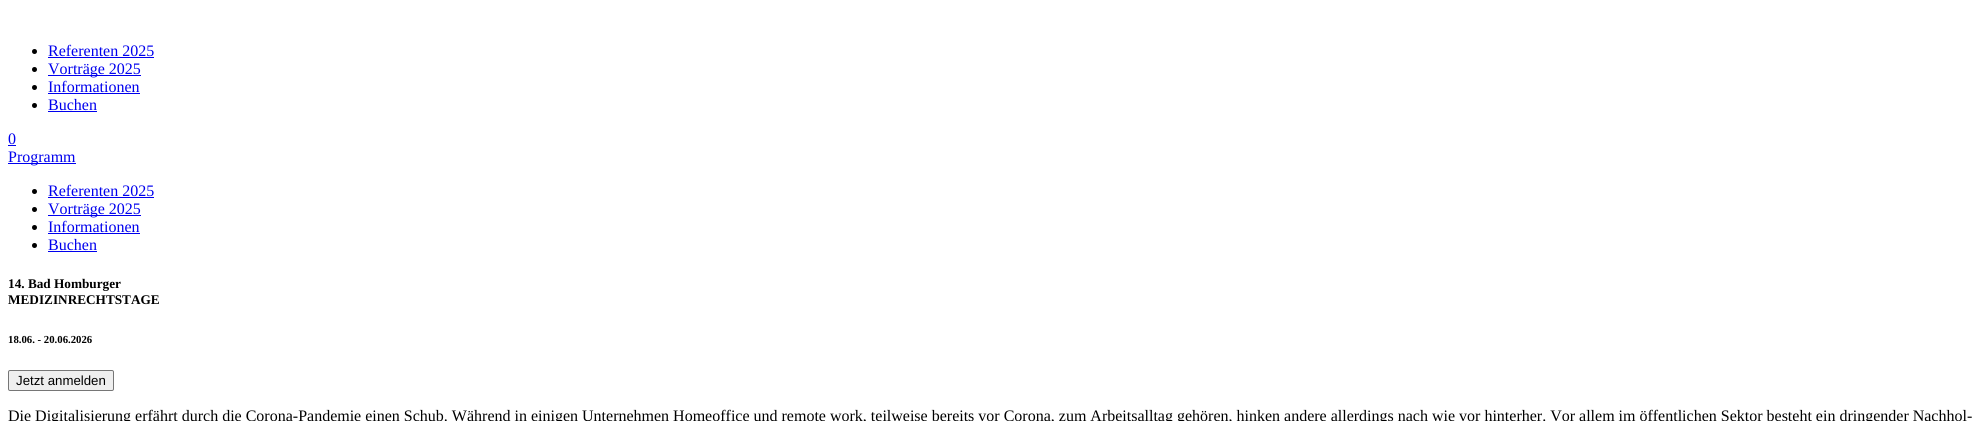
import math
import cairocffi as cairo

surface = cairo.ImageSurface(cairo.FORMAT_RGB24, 1988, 421)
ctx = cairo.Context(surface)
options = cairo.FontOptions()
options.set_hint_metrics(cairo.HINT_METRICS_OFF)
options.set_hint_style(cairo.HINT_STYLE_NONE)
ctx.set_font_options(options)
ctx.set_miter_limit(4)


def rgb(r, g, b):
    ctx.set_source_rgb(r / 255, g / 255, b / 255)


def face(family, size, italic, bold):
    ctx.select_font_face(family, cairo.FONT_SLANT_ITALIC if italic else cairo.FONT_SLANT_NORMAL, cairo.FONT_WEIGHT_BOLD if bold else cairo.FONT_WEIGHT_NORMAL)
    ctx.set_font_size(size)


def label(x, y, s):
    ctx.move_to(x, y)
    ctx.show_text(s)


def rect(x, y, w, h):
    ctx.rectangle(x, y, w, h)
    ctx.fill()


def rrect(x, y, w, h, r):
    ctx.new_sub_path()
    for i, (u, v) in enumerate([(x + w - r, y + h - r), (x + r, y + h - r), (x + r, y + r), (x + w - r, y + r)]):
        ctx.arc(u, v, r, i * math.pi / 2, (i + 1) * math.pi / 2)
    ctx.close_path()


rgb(255, 255, 255)
ctx.paint()
rgb(0, 0, 0)
ctx.arc(34.5, 51.5, 2.5, 0, 2 * math.pi)
ctx.fill()
face('Liberation Serif', 16, 0, 0)
rgb(0, 0, 238)
label(48, 56, 'Referenten 2025')
rect(48, 57, 106, 1)
rgb(0, 0, 0)
ctx.new_path()
ctx.arc(34.5, 69.5, 2.5, 0, 2 * math.pi)
ctx.fill()
rgb(0, 0, 238)
rect(48, 75, 93, 1)
label(48, 74, 'Vorträge 2025')
rgb(0, 0, 0)
ctx.new_path()
ctx.arc(34.5, 87.5, 2.5, 0, 2 * math.pi)
ctx.fill()
rgb(0, 0, 238)
label(48, 92, 'Informationen')
rect(48, 93, 92, 1)
rgb(0, 0, 0)
ctx.new_path()
ctx.arc(34.5, 105.5, 2.5, 0, 2 * math.pi)
ctx.fill()
rgb(0, 0, 238)
label(48, 110, 'Buchen')
rect(48, 111, 49, 1)
label(8, 144, '0')
rect(8, 145, 8, 1)
rect(8, 163, 68, 1)
label(8, 162, 'Programm')
rgb(0, 0, 0)
ctx.new_path()
ctx.arc(34.5, 191.5, 2.5, 0, 2 * math.pi)
ctx.fill()
rgb(0, 0, 238)
label(48, 196, 'Referenten 2025')
rect(48, 197, 106, 1)
rgb(0, 0, 0)
ctx.new_path()
ctx.arc(34.5, 209.5, 2.5, 0, 2 * math.pi)
ctx.fill()
rgb(0, 0, 238)
rect(48, 215, 93, 1)
label(48, 214, 'Vorträge 2025')
rgb(0, 0, 0)
ctx.new_path()
ctx.arc(34.5, 227.5, 2.5, 0, 2 * math.pi)
ctx.fill()
rgb(0, 0, 238)
label(48, 232, 'Informationen')
rect(48, 233, 92, 1)
rgb(0, 0, 0)
ctx.new_path()
ctx.arc(34.5, 245.5, 2.5, 0, 2 * math.pi)
ctx.fill()
rgb(0, 0, 238)
label(48, 250, 'Buchen')
rect(48, 251, 49, 1)
face('Liberation Serif', 13.25, 0, 1)
rgb(0, 0, 0)
label(8, 288, '14. Bad Homburger')
label(8, 304, 'MEDIZINRECHTSTAGE')
face('Liberation Serif', 10.75, 0, 1)
label(8, 343, '18.06. - 20.06.2026')
rgb(239, 239, 239)
rrect(8.5, 370.5, 105, 20, 1.5)
ctx.fill_preserve()
rgb(118, 118, 118)
ctx.set_line_width(1)
ctx.stroke()
face('Liberation Sans', 13.25, 0, 0)
rgb(0, 0, 0)
label(16, 385, 'Jetzt anmelden')
face('Liberation Serif', 16, 0, 0)
label(8, 421, 'Die Digitalisierung erfährt durch die Corona-Pandemie einen Schub. Während in einigen Unternehmen Homeoffice und remote work, teilweise bereits vor Corona, zum Arbeitsalltag gehören, hinken andere allerdings nach wie vor hinterher. Vor allem im öffentlichen Sektor besteht ein dringender Nachhol-')
surface.write_to_png('render.png')
